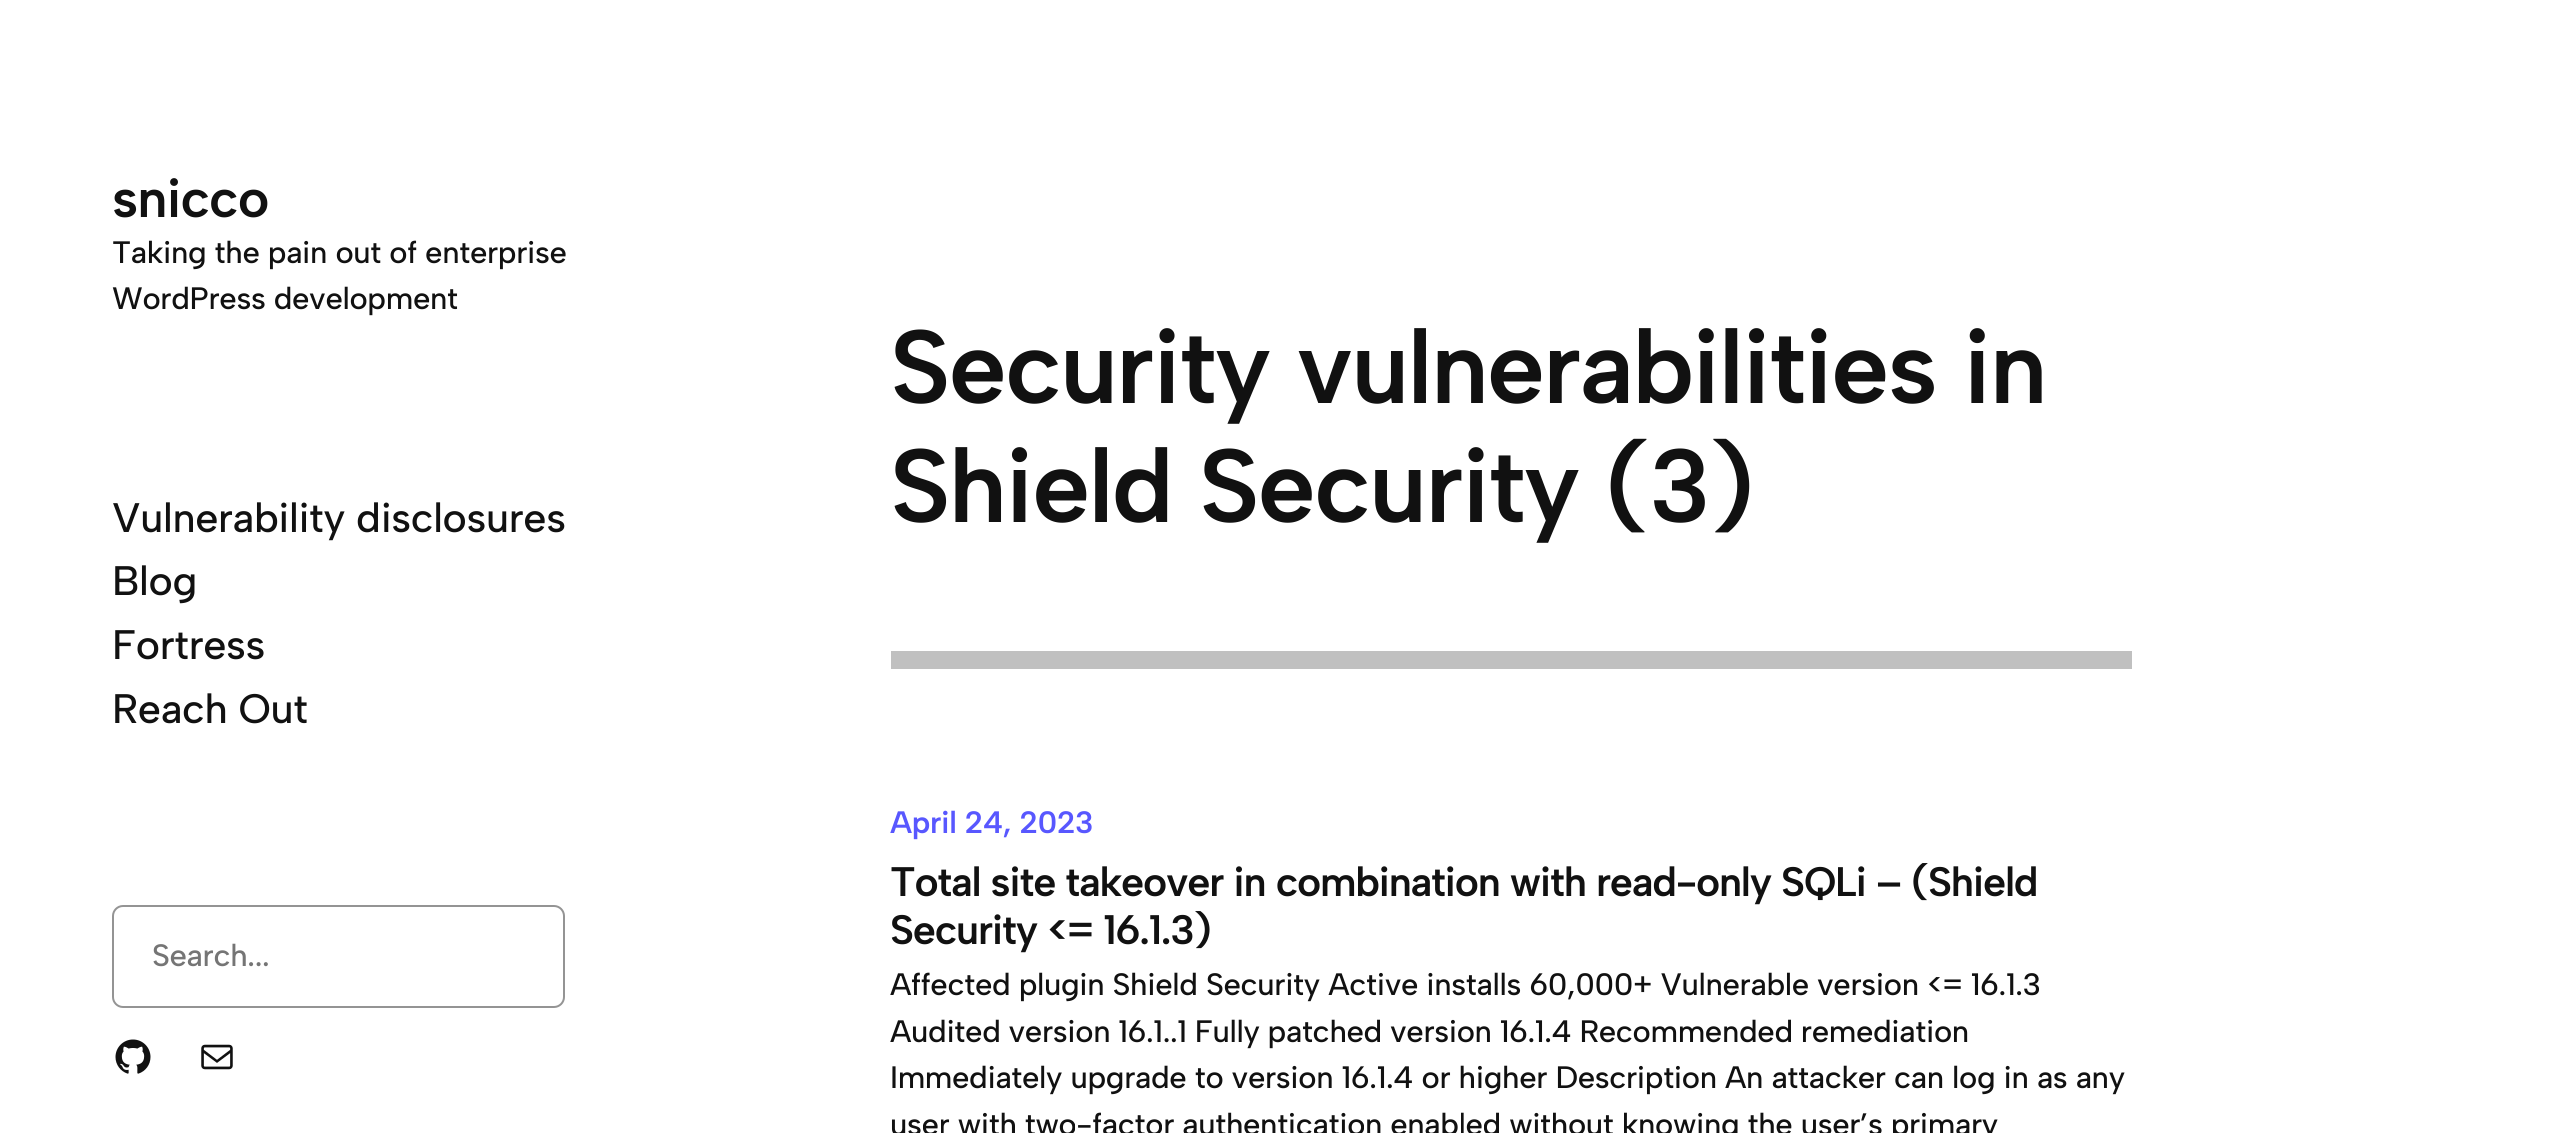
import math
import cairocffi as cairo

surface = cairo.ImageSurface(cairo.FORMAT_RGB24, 2553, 1133)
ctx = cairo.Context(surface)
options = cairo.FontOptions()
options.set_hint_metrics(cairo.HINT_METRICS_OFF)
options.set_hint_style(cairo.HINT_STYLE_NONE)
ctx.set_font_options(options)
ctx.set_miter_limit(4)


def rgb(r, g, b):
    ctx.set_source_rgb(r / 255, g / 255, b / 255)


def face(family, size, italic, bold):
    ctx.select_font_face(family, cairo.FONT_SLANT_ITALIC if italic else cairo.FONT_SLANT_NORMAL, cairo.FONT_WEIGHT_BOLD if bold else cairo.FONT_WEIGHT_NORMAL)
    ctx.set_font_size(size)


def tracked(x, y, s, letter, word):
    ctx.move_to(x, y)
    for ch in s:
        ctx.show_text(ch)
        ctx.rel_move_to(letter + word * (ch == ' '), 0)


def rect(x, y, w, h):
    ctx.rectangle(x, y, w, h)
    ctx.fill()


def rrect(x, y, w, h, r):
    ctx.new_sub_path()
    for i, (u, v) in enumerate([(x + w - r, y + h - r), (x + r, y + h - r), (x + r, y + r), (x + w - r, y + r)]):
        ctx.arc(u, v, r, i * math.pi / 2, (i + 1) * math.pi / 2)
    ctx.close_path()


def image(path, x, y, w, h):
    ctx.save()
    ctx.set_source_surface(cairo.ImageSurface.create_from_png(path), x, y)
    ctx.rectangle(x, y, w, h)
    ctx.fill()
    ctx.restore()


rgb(255, 255, 255)
ctx.paint()
face('Albert Sans SemiBold', 54, 0, 0)
rgb(17, 17, 17)
tracked(112, 217, 'snicco', -1, 0)
face('Albert Sans Medium', 30.95, 0, 0)
tracked(112, 263, 'Taking the pain out of enterprise', -0.35, 0)
tracked(112, 309, 'WordPress development', -0.35, 0)
face('Albert Sans Medium', 41.2, 0, 0)
tracked(112, 532, 'Vulnerability disclosures', -0.35, 0)
tracked(112, 595, 'Blog', -0.35, 0)
tracked(112, 659, 'Fortress', -0.35, 0)
tracked(112, 723, 'Reach Out', -0.35, 0)
rrect(113, 906, 451, 101, 10)
rgb(148, 148, 148)
ctx.stroke()
face('Albert Sans Medium', 30.95, 0, 0)
rgb(117, 117, 117)
tracked(152, 966, 'Search...', -0.35, 0)
image('image0.png', 115, 1039, 36, 35)
image('image1.png', 201, 1044, 32, 26)
face('Albert Sans SemiBold', 104, 0, 0)
rgb(17, 17, 17)
tracked(890, 403, 'Security vulnerabilities in', -2.1, 0)
tracked(890, 522, 'Shield Security (3)', -2.1, 0)
rgb(192, 192, 192)
rect(891, 651, 1241, 18)
face('Albert Sans SemiBold', 30.95, 0, 0)
rgb(88, 87, 255)
tracked(890, 833, 'April 24, 2023', -0.35, 0)
face('Albert Sans SemiBold', 41.2, 0, 0)
rgb(17, 17, 17)
tracked(890, 896, 'Total site takeover in combination with read-only SQLi – (Shield', -1.25, 0)
tracked(890, 944, 'Security <= 16.1.3)', -1.25, 0)
face('Albert Sans Medium', 30.95, 0, 0)
tracked(890, 995, 'Affected plugin Shield Security Active installs 60,000+ Vulnerable version <= 16.1.3', -0.35, 0)
tracked(890, 1042, 'Audited version 16.1..1 Fully patched version 16.1.4 Recommended remediation', -0.35, -0.25)
tracked(890, 1088, 'Immediately upgrade to version 16.1.4 or higher Description An attacker can log in as any', -0.35, 0)
tracked(890, 1135, 'user with two-factor authentication enabled without knowing the user’s primary', -0.35, -0.1)
surface.write_to_png('render.png')
